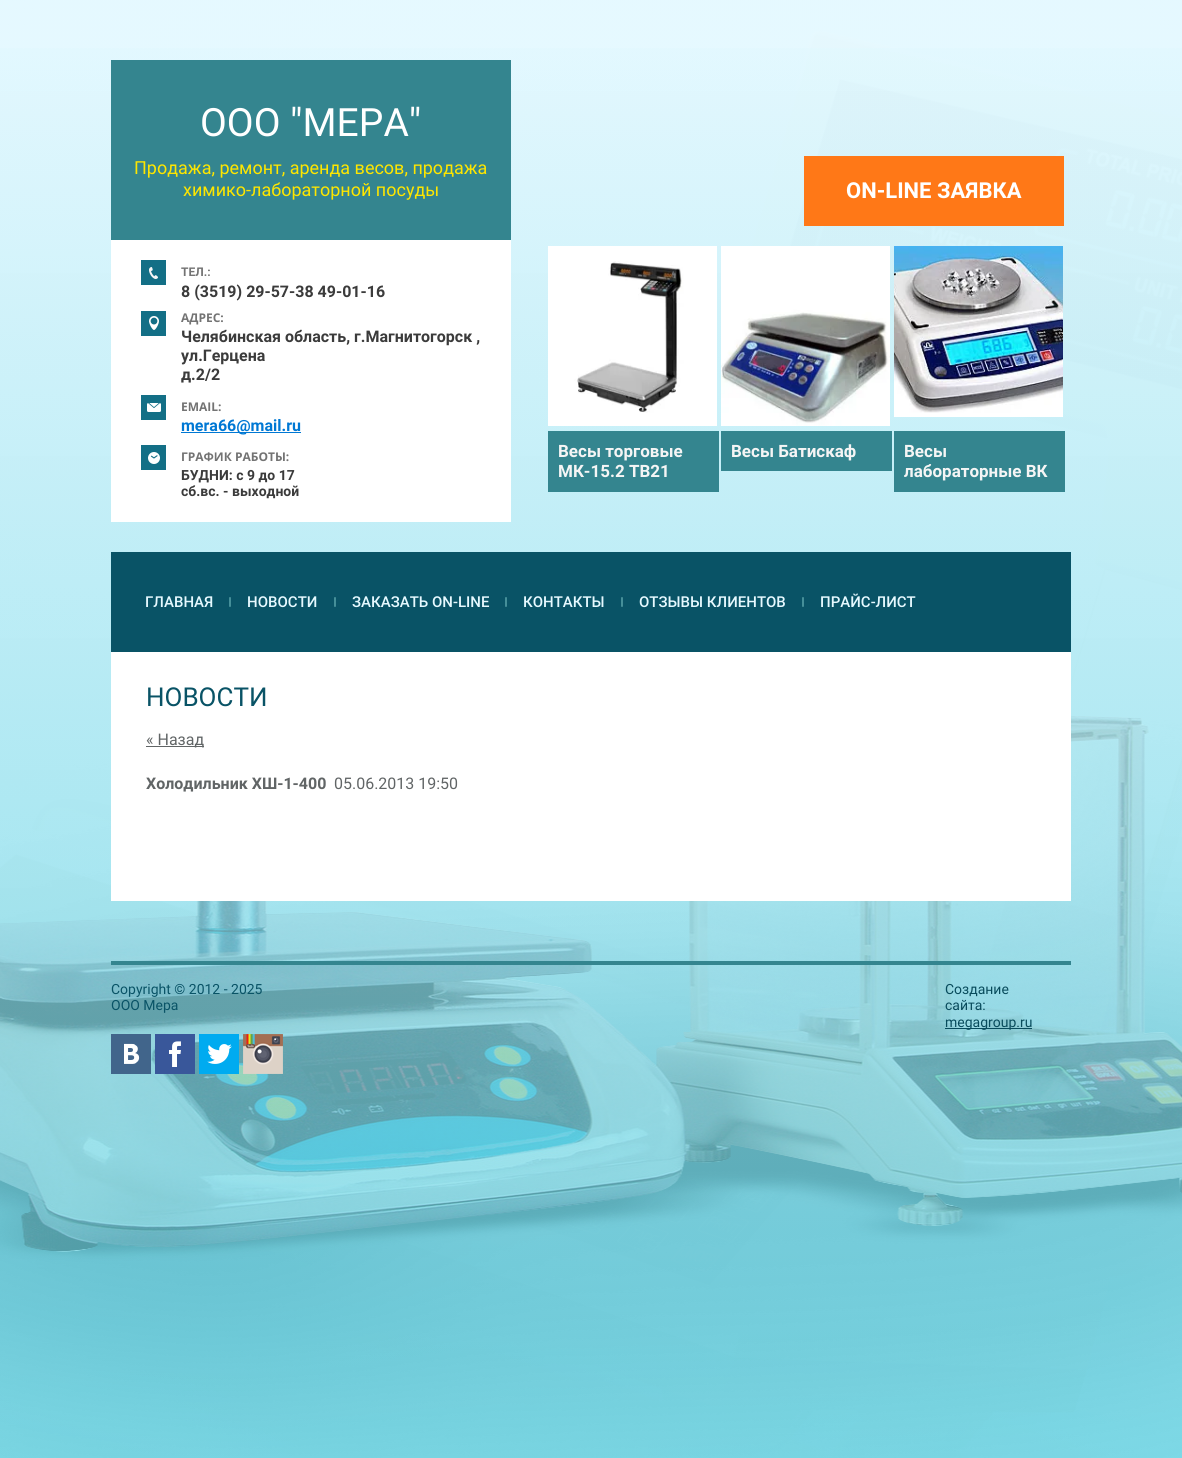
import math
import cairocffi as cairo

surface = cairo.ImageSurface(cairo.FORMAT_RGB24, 1182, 1458)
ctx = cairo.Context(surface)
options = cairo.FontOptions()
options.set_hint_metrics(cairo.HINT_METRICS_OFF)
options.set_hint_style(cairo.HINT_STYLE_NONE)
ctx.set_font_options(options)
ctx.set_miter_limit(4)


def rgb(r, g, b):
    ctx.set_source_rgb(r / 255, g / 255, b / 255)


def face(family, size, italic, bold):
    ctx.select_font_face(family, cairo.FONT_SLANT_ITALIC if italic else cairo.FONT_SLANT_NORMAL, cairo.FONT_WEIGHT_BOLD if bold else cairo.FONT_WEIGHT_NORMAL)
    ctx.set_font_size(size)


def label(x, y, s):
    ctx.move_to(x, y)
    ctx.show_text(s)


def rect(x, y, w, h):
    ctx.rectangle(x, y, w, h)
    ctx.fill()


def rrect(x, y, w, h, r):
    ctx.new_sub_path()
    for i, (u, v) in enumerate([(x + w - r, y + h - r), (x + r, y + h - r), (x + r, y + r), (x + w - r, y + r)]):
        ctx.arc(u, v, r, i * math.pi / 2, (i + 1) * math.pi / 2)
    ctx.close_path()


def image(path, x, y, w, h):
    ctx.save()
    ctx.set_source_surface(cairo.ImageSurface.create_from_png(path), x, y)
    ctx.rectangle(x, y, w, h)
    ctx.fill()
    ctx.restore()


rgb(255, 255, 255)
ctx.paint()
image('image0.png', 0, 0, 1182, 1458)
image('image1.png', 0, 48, 1182, 1410)
rgb(52, 133, 143)
rect(111, 60, 400, 180)
face('Roboto', 39, 0, 0)
rgb(255, 255, 255)
label(200, 136, 'OOO "МЕРА"')
face('Roboto', 18, 0, 0)
rgb(254, 230, 0)
label(134, 174, 'Продажа, ремонт, аренда весов, продажа')
label(183, 196, 'химико-лабораторной посуды')
rgb(255, 255, 255)
rect(111, 240, 400, 282)
rgb(19, 111, 134)
rect(141, 260, 25, 25)
image('image2.png', 149, 267, 9, 12)
face('Roboto', 12, 0, 1)
rgb(115, 115, 115)
label(181, 276, 'ТЕЛ.:')
face('Roboto', 16, 0, 1)
rgb(59, 59, 59)
label(181, 297, '8 (3519) 29-57-38 49-01-16')
rgb(19, 111, 134)
rect(141, 311, 25, 25)
image('image3.png', 149, 316, 10, 14)
face('Open Sans', 12, 0, 1)
rgb(115, 115, 115)
label(181, 322, 'АДРЕС:')
face('Roboto', 16, 0, 1)
rgb(59, 59, 59)
label(181, 342, 'Челябинская область, г.Магнитогорск ,')
label(181, 361, 'ул.Герцена')
label(181, 380, 'д.2/2')
rgb(19, 111, 134)
rect(141, 395, 25, 25)
image('image4.png', 147, 403, 14, 9)
face('Open Sans', 12, 0, 1)
rgb(115, 115, 115)
label(181, 411, 'EMAIL:')
rgb(0, 120, 212)
rect(181, 432, 120, 1)
face('Roboto', 16, 0, 1)
label(181, 431, 'mera66@mail.ru')
rgb(19, 111, 134)
rect(141, 445, 25, 25)
image('image5.png', 148, 452, 12, 12)
face('Open Sans', 12, 0, 1)
rgb(115, 115, 115)
label(181, 461, 'ГРАФИК РАБОТЫ:')
face('Roboto', 14, 0, 1)
rgb(59, 59, 59)
label(181, 480, 'БУДНИ: с 9 до 17')
label(181, 496, 'сб.вс. - выходной')
rgb(255, 120, 23)
rect(804, 156, 260, 70)
face('Roboto', 22, 0, 1)
rgb(255, 255, 255)
label(846, 198, 'ON-LINE ЗАЯВКА')
image('image6.png', 548, 246, 169, 180)
rgb(52, 133, 143)
rect(548, 431, 171, 61)
face('Roboto', 17, 0, 1)
rgb(245, 245, 245)
label(558, 457, 'Весы торговые')
label(558, 477, 'МК-15.2 ТВ21')
image('image7.png', 721, 246, 169, 180)
rgb(52, 133, 143)
rect(721, 431, 171, 40)
rgb(245, 245, 245)
label(731, 457, 'Весы Батискаф')
image('image8.png', 894, 246, 169, 171)
rgb(52, 133, 143)
rect(894, 431, 171, 61)
rgb(245, 245, 245)
label(904, 457, 'Весы')
label(904, 477, 'лабораторные ВК')
rgb(9, 83, 102)
rect(111, 552, 960, 100)
face('Roboto Medium', 15, 0, 0)
rgb(230, 249, 255)
label(145, 607, 'ГЛАВНАЯ')
rgb(69, 143, 153)
rrect(229, 597, 2, 10, 1)
ctx.fill()
rgb(230, 249, 255)
label(247, 607, 'НОВОСТИ')
rgb(69, 143, 153)
rrect(334, 597, 2, 10, 1)
ctx.fill()
rgb(230, 249, 255)
label(352, 607, 'ЗАКАЗАТЬ ON-LINE')
rgb(69, 143, 153)
rrect(505, 597, 2, 10, 1)
ctx.fill()
rgb(230, 249, 255)
label(523, 607, 'КОНТАКТЫ')
rgb(69, 143, 153)
rrect(621, 597, 2, 10, 1)
ctx.fill()
rgb(230, 249, 255)
label(639, 607, 'ОТЗЫВЫ КЛИЕНТОВ')
rgb(69, 143, 153)
rrect(802, 597, 2, 10, 1)
ctx.fill()
rgb(230, 249, 255)
label(820, 607, 'ПРАЙС-ЛИСТ')
rgb(255, 255, 255)
rect(111, 652, 960, 249)
face('Roboto', 26, 0, 0)
rgb(9, 83, 102)
label(146, 706, 'НОВОСТИ')
rgb(97, 101, 102)
rect(146, 746, 58, 1)
face('Roboto', 16, 0, 0)
label(146, 745, '« Назад')
face('Roboto', 16, 0, 1)
label(146, 789, 'Холодильник ХШ-1-400')
face('Roboto', 16, 0, 0)
label(334, 789, '05.06.2013 19:50')
rgb(52, 133, 143)
rect(111, 961, 960, 4)
face('Roboto', 14, 0, 0)
rgb(9, 83, 102)
label(111, 994, 'Copyright © 2012 - 2025')
label(111, 1010, 'ООО Мера')
image('image9.png', 111, 1034, 40, 40)
image('image10.png', 155, 1034, 40, 40)
image('image11.png', 199, 1034, 40, 40)
image('image12.png', 243, 1034, 40, 40)
rgb(8, 75, 92)
label(945, 994, 'Создание')
label(945, 1010, 'сайта:')
rect(945, 1028, 87, 1)
label(945, 1027, 'megagroup.ru')
surface.write_to_png('render.png')
